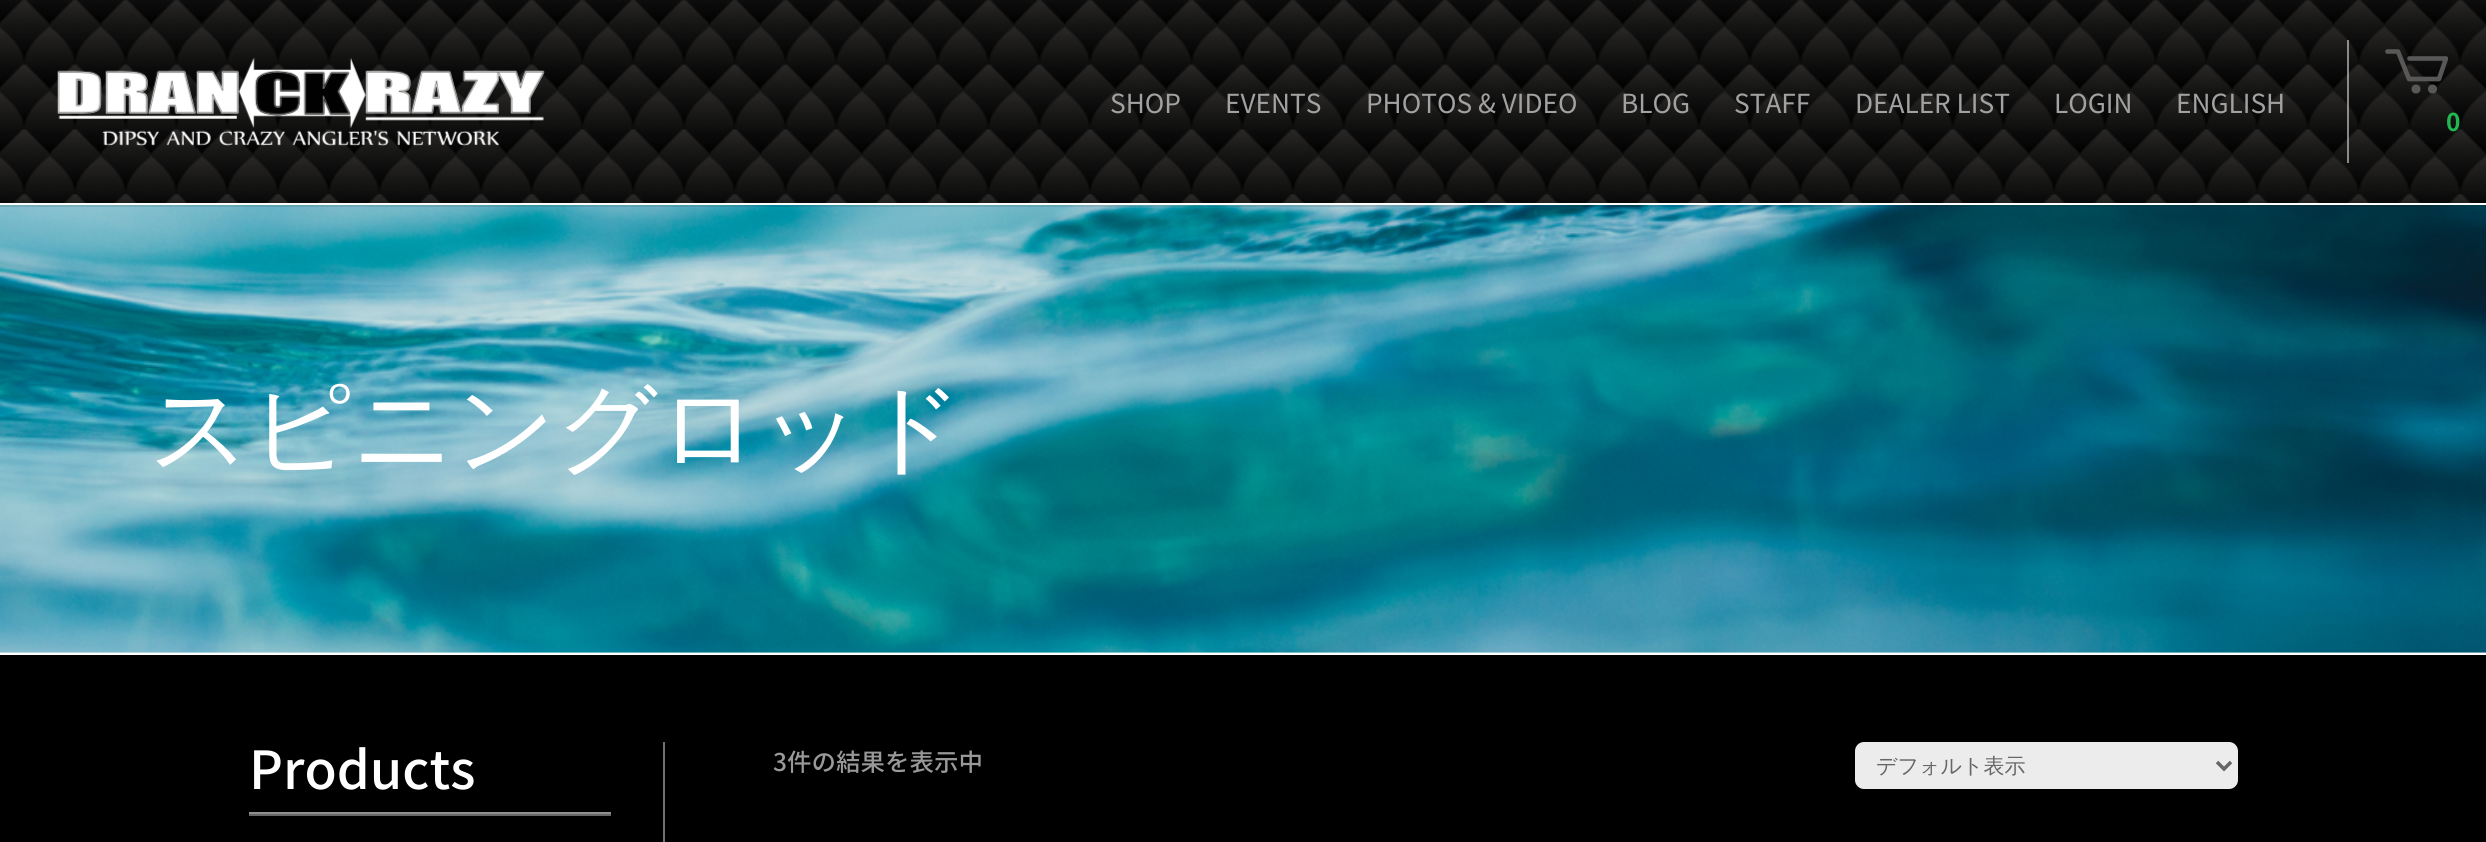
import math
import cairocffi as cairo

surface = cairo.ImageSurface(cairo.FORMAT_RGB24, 2486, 842)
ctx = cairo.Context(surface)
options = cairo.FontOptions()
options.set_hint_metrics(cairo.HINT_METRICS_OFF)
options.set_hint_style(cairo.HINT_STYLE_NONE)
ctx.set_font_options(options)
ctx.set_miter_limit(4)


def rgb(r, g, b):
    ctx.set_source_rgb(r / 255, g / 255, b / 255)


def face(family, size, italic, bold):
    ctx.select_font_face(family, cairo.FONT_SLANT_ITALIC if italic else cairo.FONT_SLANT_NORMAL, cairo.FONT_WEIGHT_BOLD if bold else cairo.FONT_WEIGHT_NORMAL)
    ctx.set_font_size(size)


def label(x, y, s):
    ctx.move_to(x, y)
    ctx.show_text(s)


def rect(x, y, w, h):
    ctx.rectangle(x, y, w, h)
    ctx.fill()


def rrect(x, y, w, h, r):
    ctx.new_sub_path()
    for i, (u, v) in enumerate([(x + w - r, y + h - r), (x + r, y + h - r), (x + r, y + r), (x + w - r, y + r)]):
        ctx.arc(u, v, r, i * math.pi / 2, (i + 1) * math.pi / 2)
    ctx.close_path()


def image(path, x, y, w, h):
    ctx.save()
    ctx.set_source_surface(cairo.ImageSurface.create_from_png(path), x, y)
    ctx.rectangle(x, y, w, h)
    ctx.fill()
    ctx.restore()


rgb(0, 0, 0)
ctx.paint()
rgb(255, 255, 255)
rect(0, 652, 2486, 3)
image('image2.png', 0, 205, 2486, 448)
ctx.set_source_rgba(0, 0, 0, 0.1)
ctx.new_path()
ctx.move_to(0, 205)
ctx.line_to(0, 207)
ctx.line_to(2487, 207)
ctx.line_to(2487, 2)
ctx.line_to(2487, 205)
ctx.close_path()
ctx.fill()
image('image0.png', 0, 0, 2486, 203)
rgb(255, 255, 255)
rect(0, 203, 2486, 2)
image('image1.png', 57, 57, 488, 89)
face('Noto Sans JP', 26.25, 0, 0)
rgb(162, 162, 162)
label(1110, 113, 'SHOP')
label(1225, 113, 'EVENTS')
label(1366, 113, 'PHOTOS & VIDEO')
label(1621, 113, 'BLOG')
label(1734, 113, 'STAFF')
label(1855, 113, 'DEALER LIST')
label(2054, 113, 'LOGIN')
label(2176, 113, 'ENGLISH')
ctx.set_source_rgba(1, 1, 1, 0.5)
rect(2347, 40, 2, 123)
ctx.save()
ctx.rectangle(2385, 49, 63, 46)
ctx.clip()
ctx.new_path()
ctx.move_to(2387.5, 51.5)
ctx.line_to(2398, 51.5)
ctx.line_to(2409, 79)
ctx.line_to(2439, 79)
ctx.line_to(2446, 58.5)
ctx.line_to(2409.5, 58.5)
rgb(88, 88, 88)
ctx.set_line_width(4.6)
ctx.set_line_cap(cairo.LINE_CAP_ROUND)
ctx.set_line_join(cairo.LINE_JOIN_ROUND)
ctx.stroke()
ctx.restore()
rgb(88, 88, 88)
ctx.arc(2416, 89, 4.5, 0, 2 * math.pi)
ctx.fill()
ctx.arc(2432.5, 89, 4.5, 0, 2 * math.pi)
ctx.fill()
face('Noto Sans JP', 24.5, 0, 1)
rgb(32, 185, 80)
label(2446, 131, '0')
face('WenQuanYi Zen Hei Medium', 99.5, 0, 0)
rgb(255, 255, 255)
label(149, 462, 'スピニングロッド')
rgb(113, 113, 113)
rect(663, 742, 2, 100)
rgb(143, 143, 143)
rect(249, 812, 362, 2)
face('Noto Sans JP Medium', 52.5, 0, 0)
rgb(255, 255, 255)
label(249, 789, 'Products')
rgb(102, 102, 102)
rect(249, 814, 362, 2)
face('Noto Sans JP Medium', 24.5, 0, 0)
rgb(153, 153, 153)
label(773, 771, '3件の結果を表示中')
rgb(236, 236, 236)
rrect(1855, 742, 383, 47, 9)
ctx.fill()
ctx.new_path()
ctx.move_to(2217, 762)
ctx.line_to(2224, 769)
ctx.line_to(2231, 762)
rgb(102, 102, 102)
ctx.set_line_width(3.5)
ctx.stroke()
face('WenQuanYi Zen Hei Medium', 21, 0, 0)
label(1876, 773, 'デフォルト表示')
surface.write_to_png('render.png')
